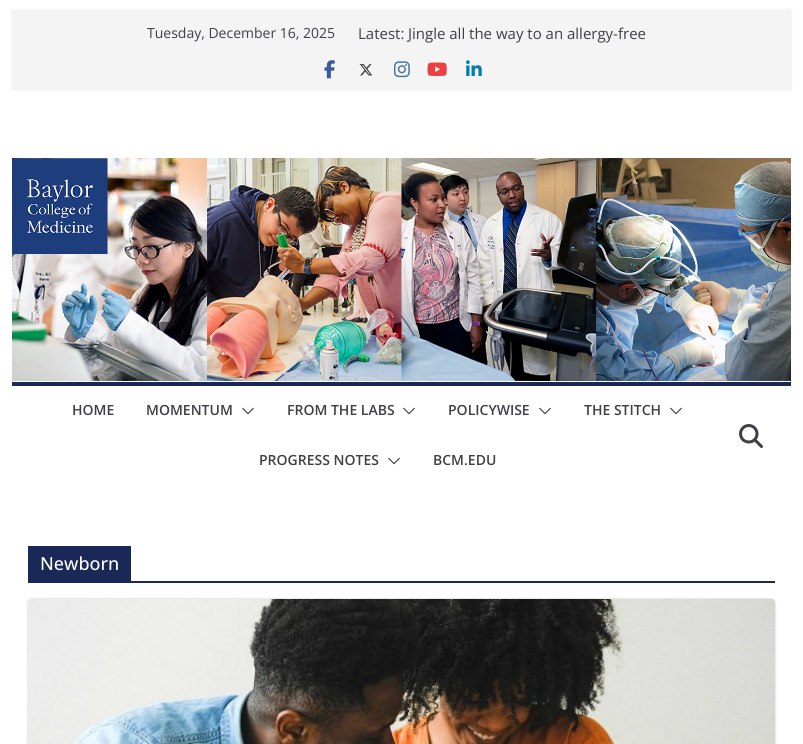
import math
import cairocffi as cairo

surface = cairo.ImageSurface(cairo.FORMAT_RGB24, 803, 744)
ctx = cairo.Context(surface)
options = cairo.FontOptions()
options.set_hint_metrics(cairo.HINT_METRICS_OFF)
options.set_hint_style(cairo.HINT_STYLE_NONE)
ctx.set_font_options(options)
ctx.set_miter_limit(4)


def rgb(r, g, b):
    ctx.set_source_rgb(r / 255, g / 255, b / 255)


def face(family, size, italic, bold):
    ctx.select_font_face(family, cairo.FONT_SLANT_ITALIC if italic else cairo.FONT_SLANT_NORMAL, cairo.FONT_WEIGHT_BOLD if bold else cairo.FONT_WEIGHT_NORMAL)
    ctx.set_font_size(size)


def label(x, y, s):
    ctx.move_to(x, y)
    ctx.show_text(s)


def rect(x, y, w, h):
    ctx.rectangle(x, y, w, h)
    ctx.fill()


def rrect(x, y, w, h, r):
    ctx.new_sub_path()
    for i, (u, v) in enumerate([(x + w - r, y + h - r), (x + r, y + h - r), (x + r, y + r), (x + w - r, y + r)]):
        ctx.arc(u, v, r, i * math.pi / 2, (i + 1) * math.pi / 2)
    ctx.close_path()


def soft_shadow(x, y, w, h, r, blur, alpha):
    ctx.push_group_with_content(cairo.CONTENT_ALPHA)
    ctx.set_operator(cairo.OPERATOR_SOURCE)
    for i in range(15, -16, -2):
        e = blur * i / 6
        if min(w, h) + 2 * e > 0:
            ctx.set_source_rgba(0, 0, 0, alpha * math.erfc((i - 1) / 8.5) / 2)
            rrect(x - e, y - e, w + 2 * e, h + 2 * e, max(0, min(r + e + blur * .6, min(w, h) / 2 + e)))
            ctx.fill()
    ctx.mask(ctx.pop_group())


def image(path, x, y, w, h):
    ctx.save()
    ctx.set_source_surface(cairo.ImageSurface.create_from_png(path), x, y)
    ctx.rectangle(x, y, w, h)
    ctx.fill()
    ctx.restore()


rgb(255, 255, 255)
ctx.paint()
rgb(0, 0, 0)
soft_shadow(12, 10, 779, 80, 0, 1, 0.1)
rgb(244, 244, 245)
rect(12, 10, 779, 80)
face('Open Sans', 14, 0, 0)
rgb(63, 63, 70)
label(147, 38, 'Tuesday, December 16, 2025')
face('Open Sans', 15, 0, 0)
label(358, 39, 'Latest:')
label(408, 39, 'Jingle all the way to an allergy-free')
image('image0.png', 324, 60, 11, 19)
image('image1.png', 359, 64, 14, 12)
image('image2.png', 394, 61, 16, 17)
image('image3.png', 427, 62, 20, 14)
image('image4.png', 466, 60, 16, 16)
image('image5.png', 12, 158, 779, 223)
rgb(25, 40, 87)
rect(12, 382, 779, 4)
face('Open Sans SemiBold', 14, 0, 0)
rgb(63, 63, 70)
label(72, 415, 'HOME')
label(146, 415, 'MOMENTUM')
image('image6.png', 242, 407, 12, 8)
label(287, 415, 'FROM THE LABS')
image('image6.png', 403, 407, 12, 8)
label(448, 415, 'POLICYWISE')
image('image6.png', 539, 407, 12, 8)
label(584, 415, 'THE STITCH')
image('image6.png', 670, 407, 12, 8)
label(259, 465, 'PROGRESS NOTES')
image('image6.png', 388, 457, 12, 8)
label(433, 465, 'BCM.EDU')
image('image7.png', 739, 424, 24, 24)
rgb(25, 40, 87)
rect(28, 581, 747, 2)
rect(28, 546, 103, 35)
face('Open Sans Medium', 18, 0, 0)
rgb(255, 255, 255)
label(40, 570, 'Newborn')
rgb(0, 0, 0)
soft_shadow(28, 599, 747, 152, 4, 1, 0.24)
image('image8.png', 28, 599, 747, 145)
surface.write_to_png('render.png')
